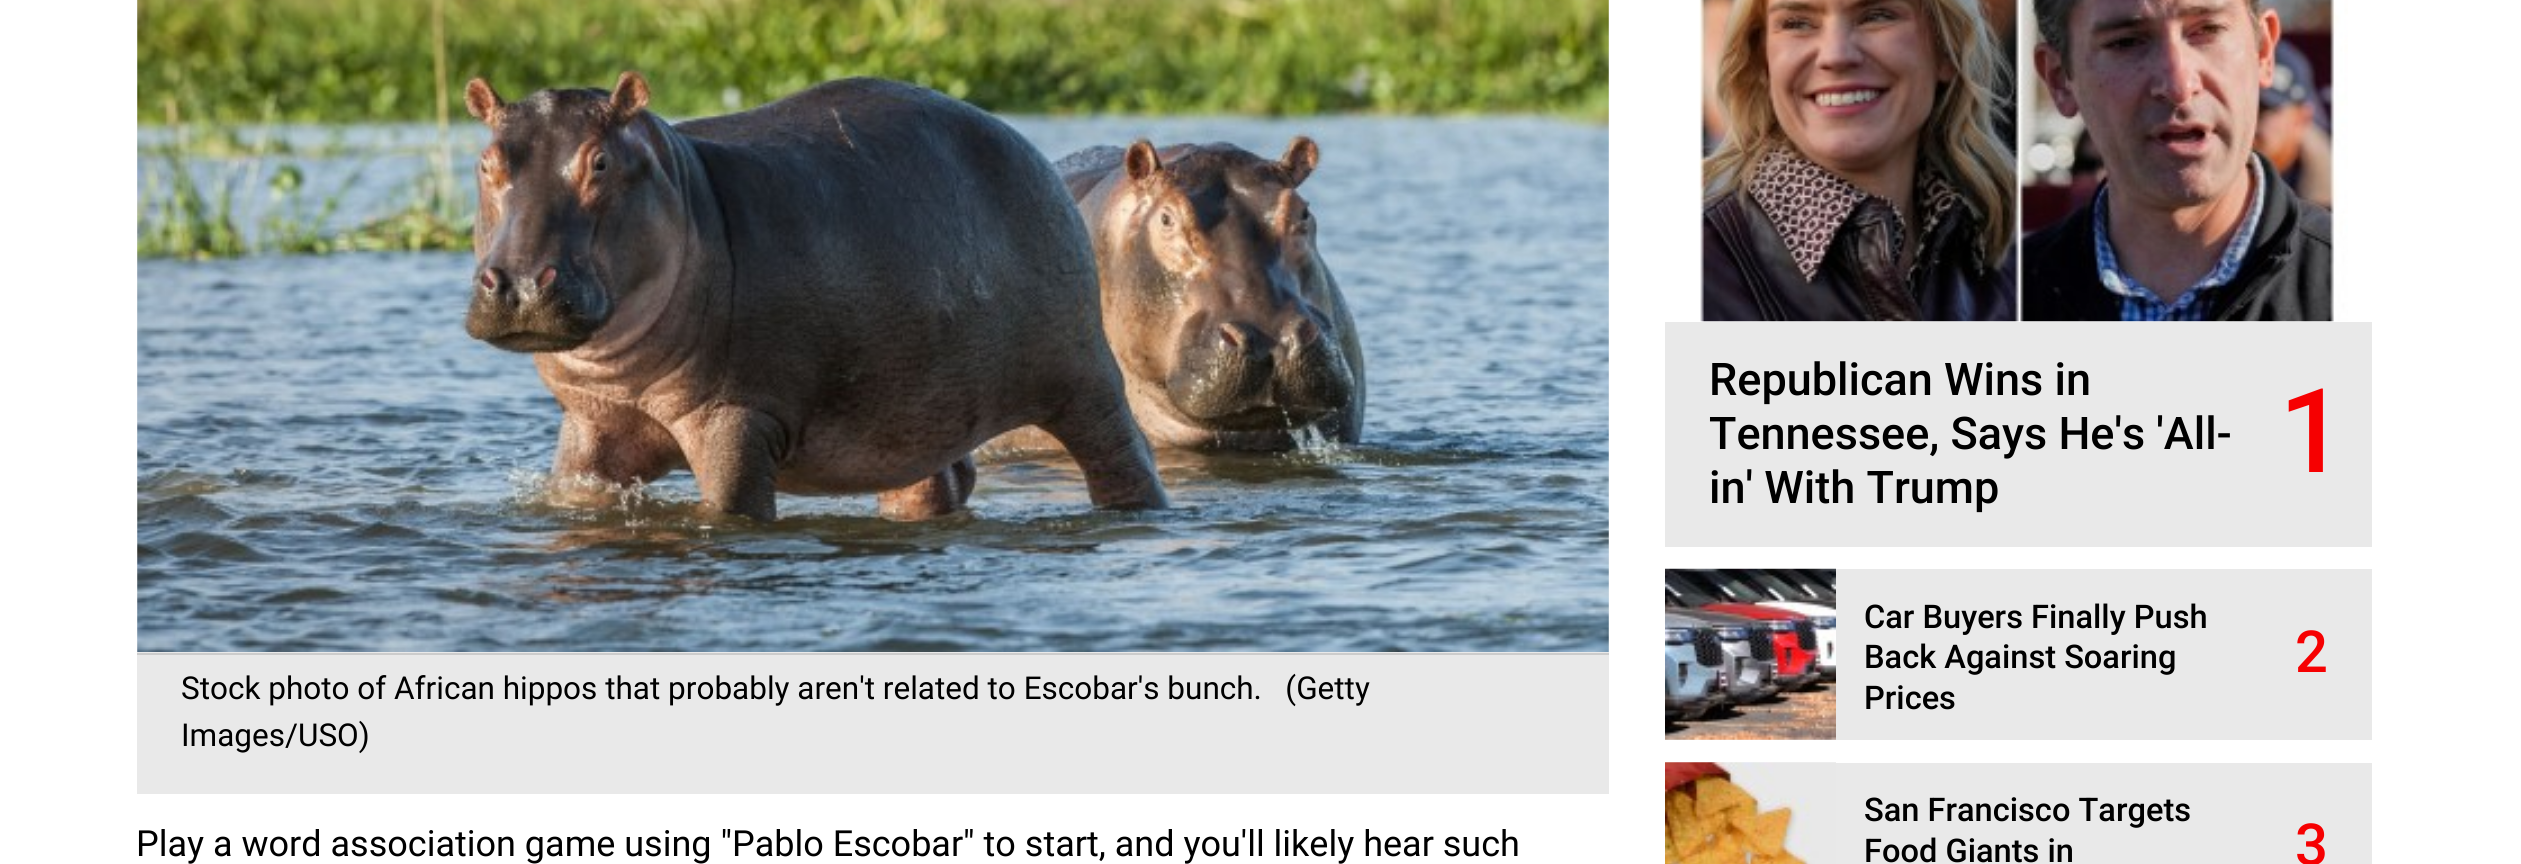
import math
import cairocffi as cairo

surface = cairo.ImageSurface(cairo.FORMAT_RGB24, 2521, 864)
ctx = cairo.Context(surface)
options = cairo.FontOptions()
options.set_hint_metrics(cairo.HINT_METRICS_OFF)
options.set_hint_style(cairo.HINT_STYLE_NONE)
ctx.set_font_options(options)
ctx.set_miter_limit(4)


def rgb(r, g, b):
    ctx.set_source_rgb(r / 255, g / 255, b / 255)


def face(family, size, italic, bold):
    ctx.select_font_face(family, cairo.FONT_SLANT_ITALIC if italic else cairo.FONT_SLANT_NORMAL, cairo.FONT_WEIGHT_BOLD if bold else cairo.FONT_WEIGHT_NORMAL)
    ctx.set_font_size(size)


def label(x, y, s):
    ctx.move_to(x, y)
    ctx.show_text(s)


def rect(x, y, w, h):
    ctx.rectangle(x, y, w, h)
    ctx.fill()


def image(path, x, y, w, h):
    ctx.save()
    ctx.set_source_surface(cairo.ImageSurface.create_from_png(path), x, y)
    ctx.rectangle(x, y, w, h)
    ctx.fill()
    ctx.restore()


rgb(255, 255, 255)
ctx.paint()
rgb(233, 233, 233)
rect(137, 0, 1472, 794)
rgb(204, 204, 204)
rect(137, 653, 1472, 2)
image('image0.png', 137, 0, 1472, 652)
face('Roboto', 31.5, 0, 0)
rgb(0, 0, 0)
label(181, 699, 'Stock photo of African hippos that probably aren\'t related to Escobar\'s bunch.   (Getty')
label(181, 746, 'Images/USO)')
face('Roboto', 36, 0, 0)
label(136, 856, 'Play a word association game using "Pablo Escobar" to start, and you\'ll likely hear such')
image('image1.png', 1699, 0, 649, 322)
rgb(233, 233, 233)
rect(1665, 322, 707, 225)
face('Roboto Medium', 45, 0, 0)
rgb(0, 0, 0)
label(1709, 395, 'Republican Wins in')
label(1709, 449, 'Tennessee, Says He\'s \'All-')
label(1709, 503, 'in\' With Trump')
face('Roboto Medium', 117, 0, 0)
rgb(246, 0, 1)
label(2279, 472, '1')
rgb(233, 233, 233)
rect(1665, 569, 707, 171)
image('image2.png', 1665, 568, 171, 172)
face('Roboto Medium', 32.6, 0, 0)
rgb(0, 0, 0)
label(1864, 628, 'Car Buyers Finally Push')
label(1864, 668, 'Back Against Soaring')
label(1864, 709, 'Prices')
face('Roboto Medium', 58, 0, 0)
rgb(246, 0, 1)
label(2295, 672, '2')
rgb(233, 233, 233)
rect(1836, 763, 536, 101)
image('image3.png', 1665, 762, 171, 102)
face('Roboto Medium', 32.6, 0, 0)
rgb(0, 0, 0)
label(1864, 821, 'San Francisco Targets')
label(1864, 862, 'Food Giants in')
face('Roboto Medium', 58, 0, 0)
rgb(246, 0, 1)
label(2295, 865, '3')
surface.write_to_png('render.png')
